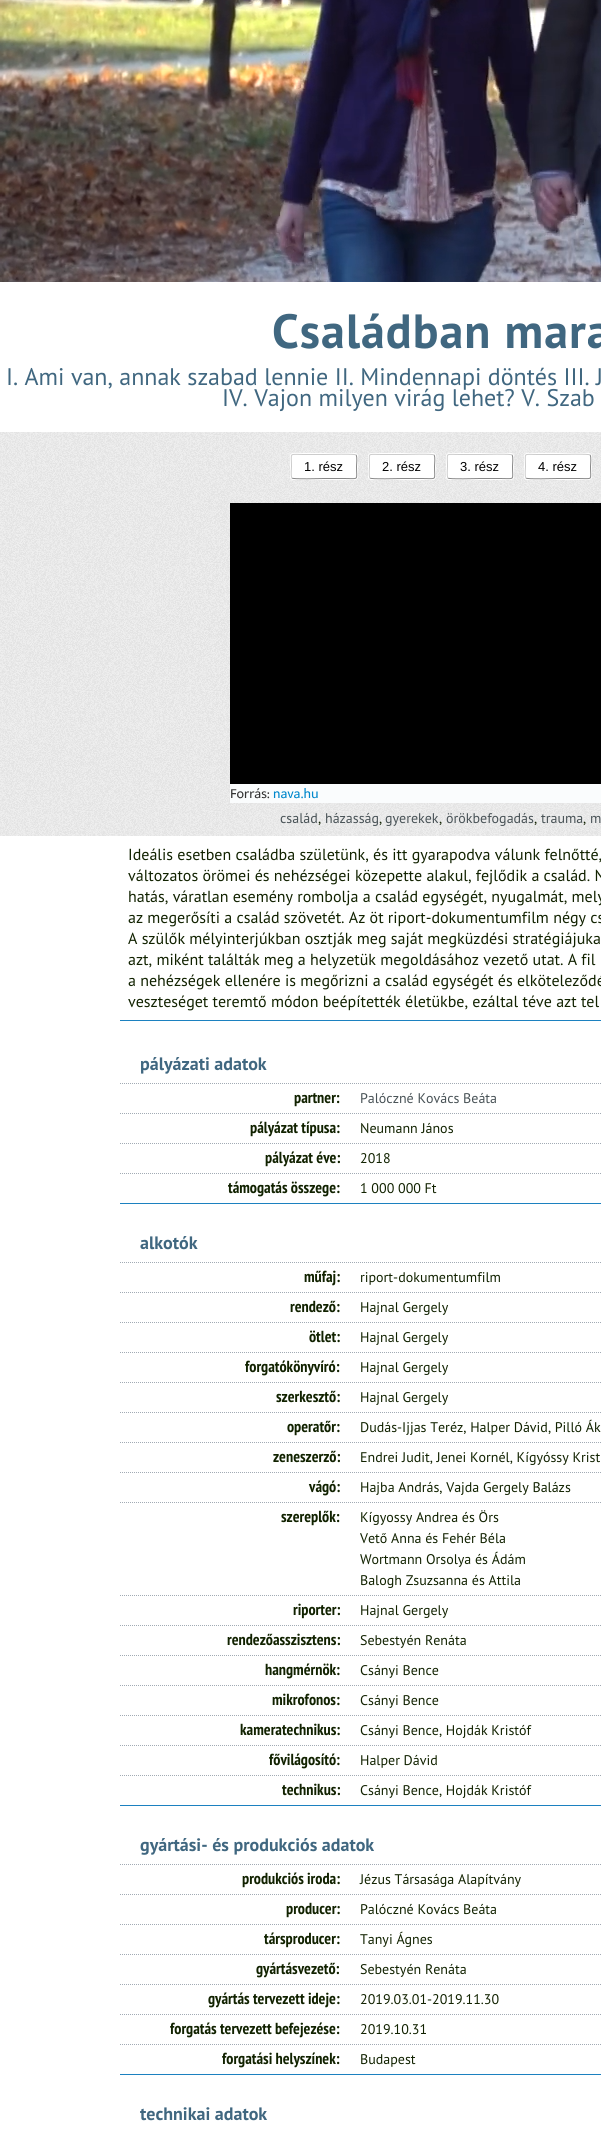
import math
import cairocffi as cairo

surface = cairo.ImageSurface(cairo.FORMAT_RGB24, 601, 2132)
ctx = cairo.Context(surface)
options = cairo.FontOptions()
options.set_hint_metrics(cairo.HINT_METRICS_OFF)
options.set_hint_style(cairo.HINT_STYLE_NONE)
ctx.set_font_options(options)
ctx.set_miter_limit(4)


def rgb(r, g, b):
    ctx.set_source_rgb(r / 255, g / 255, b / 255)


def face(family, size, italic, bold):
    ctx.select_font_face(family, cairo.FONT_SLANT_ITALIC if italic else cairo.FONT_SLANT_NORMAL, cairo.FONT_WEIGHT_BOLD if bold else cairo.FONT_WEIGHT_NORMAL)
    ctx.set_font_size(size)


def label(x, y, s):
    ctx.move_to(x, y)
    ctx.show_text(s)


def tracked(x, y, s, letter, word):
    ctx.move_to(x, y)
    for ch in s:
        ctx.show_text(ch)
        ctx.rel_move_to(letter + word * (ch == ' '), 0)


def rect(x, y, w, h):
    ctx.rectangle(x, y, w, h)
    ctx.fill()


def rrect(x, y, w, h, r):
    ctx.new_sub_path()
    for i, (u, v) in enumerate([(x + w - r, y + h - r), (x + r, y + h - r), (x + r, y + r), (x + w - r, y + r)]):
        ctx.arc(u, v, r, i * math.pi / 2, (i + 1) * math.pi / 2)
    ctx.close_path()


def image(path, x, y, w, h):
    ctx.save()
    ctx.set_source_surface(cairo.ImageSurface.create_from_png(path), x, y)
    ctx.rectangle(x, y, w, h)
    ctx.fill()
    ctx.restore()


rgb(255, 255, 255)
ctx.paint()
image('image0.png', 0, 0, 601, 282)
face('PT Sans', 48, 0, 1)
rgb(64, 103, 128)
tracked(272, 348, 'Családban mara', 1, 0)
face('PT Sans', 24, 0, 0)
label(6, 385, 'I. Ami van, annak szabad lennie II. Mindennapi döntés III. J')
label(222, 406, 'IV. Vajon milyen virág lehet? V. Szab')
rgb(238, 238, 238)
rect(0, 432, 601, 404)
image('image1.png', 0, 432, 601, 376)
rrect(290.5, 453.5, 67, 26, 2.5)
rgb(255, 255, 255)
ctx.set_line_width(1)
ctx.stroke()
rrect(291, 454, 66, 25, 2)
ctx.fill()
ctx.new_path()
ctx.move_to(356, 455)
ctx.curve_to(357.5, 456.5, 356.5, 464.5, 356.5, 466.5)
ctx.curve_to(356.5, 481, 359.5, 478.5, 344.5, 478.5)
ctx.line_to(324, 478.5)
ctx.curve_to(320.5, 478.5, 293, 479.5, 292, 478)
rgb(136, 136, 136)
ctx.stroke()
ctx.new_path()
ctx.move_to(292, 478)
ctx.curve_to(290.5, 476.5, 291.5, 468.5, 291.5, 466.5)
ctx.curve_to(291.5, 452, 288.5, 454.5, 303.5, 454.5)
ctx.line_to(324, 454.5)
ctx.curve_to(327.5, 454.5, 355, 453.5, 356, 455)
rgb(204, 204, 204)
ctx.stroke()
face('Liberation Sans', 13, 0, 0)
rgb(0, 0, 0)
label(304, 471, '1. rész')
rrect(368.5, 453.5, 67, 26, 2.5)
rgb(255, 255, 255)
ctx.stroke()
rrect(369, 454, 66, 25, 2)
ctx.fill()
ctx.new_path()
ctx.move_to(434, 455)
ctx.curve_to(435.5, 456.5, 434.5, 464.5, 434.5, 466.5)
ctx.curve_to(434.5, 481, 437.5, 478.5, 422.5, 478.5)
ctx.line_to(402, 478.5)
ctx.curve_to(398.5, 478.5, 371, 479.5, 370, 478)
rgb(136, 136, 136)
ctx.stroke()
ctx.new_path()
ctx.move_to(370, 478)
ctx.curve_to(368.5, 476.5, 369.5, 468.5, 369.5, 466.5)
ctx.curve_to(369.5, 452, 366.5, 454.5, 381.5, 454.5)
ctx.line_to(402, 454.5)
ctx.curve_to(405.5, 454.5, 433, 453.5, 434, 455)
rgb(204, 204, 204)
ctx.stroke()
rgb(0, 0, 0)
label(382, 471, '2. rész')
rrect(446.5, 453.5, 67, 26, 2.5)
rgb(255, 255, 255)
ctx.stroke()
rrect(447, 454, 66, 25, 2)
ctx.fill()
ctx.new_path()
ctx.move_to(512, 455)
ctx.curve_to(513.5, 456.5, 512.5, 464.5, 512.5, 466.5)
ctx.curve_to(512.5, 481, 515.5, 478.5, 500.5, 478.5)
ctx.line_to(480, 478.5)
ctx.curve_to(476.5, 478.5, 449, 479.5, 448, 478)
rgb(136, 136, 136)
ctx.stroke()
ctx.new_path()
ctx.move_to(448, 478)
ctx.curve_to(446.5, 476.5, 447.5, 468.5, 447.5, 466.5)
ctx.curve_to(447.5, 452, 444.5, 454.5, 459.5, 454.5)
ctx.line_to(480, 454.5)
ctx.curve_to(483.5, 454.5, 511, 453.5, 512, 455)
rgb(204, 204, 204)
ctx.stroke()
rgb(0, 0, 0)
label(460, 471, '3. rész')
rrect(524.5, 453.5, 67, 26, 2.5)
rgb(255, 255, 255)
ctx.stroke()
rrect(525, 454, 66, 25, 2)
ctx.fill()
ctx.new_path()
ctx.move_to(590, 455)
ctx.curve_to(591.5, 456.5, 590.5, 464.5, 590.5, 466.5)
ctx.curve_to(590.5, 481, 593.5, 478.5, 578.5, 478.5)
ctx.line_to(558, 478.5)
ctx.curve_to(554.5, 478.5, 527, 479.5, 526, 478)
rgb(136, 136, 136)
ctx.stroke()
ctx.new_path()
ctx.move_to(526, 478)
ctx.curve_to(524.5, 476.5, 525.5, 468.5, 525.5, 466.5)
ctx.curve_to(525.5, 452, 522.5, 454.5, 537.5, 454.5)
ctx.line_to(558, 454.5)
ctx.curve_to(561.5, 454.5, 589, 453.5, 590, 455)
rgb(204, 204, 204)
ctx.stroke()
rgb(0, 0, 0)
label(538, 471, '4. rész')
image('image2.png', 230, 503, 371, 300)
image('image3.png', 0, 808, 601, 28)
face('PT Sans', 14, 0, 0)
rgb(72, 82, 86)
label(280, 823, 'család')
label(325, 823, 'házasság')
label(385, 823, 'gyerekek')
label(446, 823, 'örökbefogadás')
label(541, 823, 'trauma')
label(590, 823, 'm')
rgb(17, 34, 0)
label(318, 823, ',')
label(379, 823, ',')
label(439, 823, ',')
label(534, 823, ',')
label(583, 823, ',')
rgb(28, 129, 192)
rect(120, 1020, 481, 1)
face('PT Sans', 16, 0, 0)
rgb(17, 34, 0)
label(128, 860, 'Ideális esetben családba születünk, és itt gyarapodva válunk felnőtté,')
label(128, 881, 'változatos örömei és nehézségei közepette alakul, fejlődik a család. N')
label(128, 902, 'hatás, váratlan esemény rombolja a család egységét, nyugalmát, mely')
label(128, 923, 'az megerősíti a család szövetét. Az öt riport-dokumentumfilm négy cs')
label(128, 944, 'A szülők mélyinterjúkban osztják meg saját megküzdési stratégiájuka')
label(128, 965, 'azt, miként találták meg a helyzetük megoldásához vezető utat. A fil')
label(128, 986, 'a nehézségek ellenére is megőrizni a család egységét és elköteleződé')
label(128, 1007, 'veszteséget teremtő módon beépítették életükbe, ezáltal téve azt tel')
face('PT Sans', 18, 0, 1)
rgb(64, 103, 128)
label(140, 1070, 'pályázati adatok')
rgb(28, 129, 192)
rect(120, 1203, 481, 1)
ctx.new_path()
ctx.move_to(120, 1083.5)
ctx.line_to(360, 1083.5)
rgb(162, 171, 180)
ctx.set_dash([1, 1])
ctx.stroke()
face('PT Sans Narrow', 16, 0, 1)
rgb(17, 34, 0)
label(294, 1103, 'partner:')
ctx.new_path()
ctx.move_to(360, 1083.5)
ctx.line_to(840, 1083.5)
rgb(162, 171, 180)
ctx.stroke()
face('PT Sans', 14, 0, 0)
rgb(72, 82, 86)
label(360, 1103, 'Palóczné Kovács Beáta')
ctx.new_path()
ctx.move_to(120, 1113.5)
ctx.line_to(360, 1113.5)
rgb(162, 171, 180)
ctx.stroke()
face('PT Sans Narrow', 16, 0, 1)
rgb(17, 34, 0)
label(250, 1133, 'pályázat típusa:')
ctx.new_path()
ctx.move_to(360, 1113.5)
ctx.line_to(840, 1113.5)
rgb(162, 171, 180)
ctx.stroke()
face('PT Sans', 14, 0, 0)
rgb(17, 34, 0)
label(360, 1133, 'Neumann János')
ctx.new_path()
ctx.move_to(120, 1143.5)
ctx.line_to(360, 1143.5)
rgb(162, 171, 180)
ctx.stroke()
face('PT Sans Narrow', 16, 0, 1)
rgb(17, 34, 0)
label(265, 1163, 'pályázat éve:')
ctx.new_path()
ctx.move_to(360, 1143.5)
ctx.line_to(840, 1143.5)
rgb(162, 171, 180)
ctx.stroke()
face('PT Sans', 14, 0, 0)
rgb(17, 34, 0)
label(360, 1163, '2018')
ctx.new_path()
ctx.move_to(120, 1173.5)
ctx.line_to(360, 1173.5)
rgb(162, 171, 180)
ctx.stroke()
face('PT Sans Narrow', 16, 0, 1)
rgb(17, 34, 0)
label(228, 1193, 'támogatás összege:')
ctx.new_path()
ctx.move_to(360, 1173.5)
ctx.line_to(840, 1173.5)
rgb(162, 171, 180)
ctx.stroke()
face('PT Sans', 14, 0, 0)
rgb(17, 34, 0)
label(360, 1193, '1 000 000 Ft')
face('PT Sans', 18, 0, 1)
rgb(64, 103, 128)
label(140, 1249, 'alkotók')
rgb(28, 129, 192)
rect(120, 1805, 481, 1)
ctx.new_path()
ctx.move_to(120, 1262.5)
ctx.line_to(360, 1262.5)
rgb(162, 171, 180)
ctx.stroke()
face('PT Sans Narrow', 16, 0, 1)
rgb(17, 34, 0)
label(304, 1282, 'műfaj:')
ctx.new_path()
ctx.move_to(360, 1262.5)
ctx.line_to(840, 1262.5)
rgb(162, 171, 180)
ctx.stroke()
face('PT Sans', 14, 0, 0)
rgb(17, 34, 0)
label(360, 1282, 'riport-dokumentumfilm')
ctx.new_path()
ctx.move_to(120, 1292.5)
ctx.line_to(360, 1292.5)
rgb(162, 171, 180)
ctx.stroke()
face('PT Sans Narrow', 16, 0, 1)
rgb(17, 34, 0)
label(290, 1312, 'rendező:')
ctx.new_path()
ctx.move_to(360, 1292.5)
ctx.line_to(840, 1292.5)
rgb(162, 171, 180)
ctx.stroke()
face('PT Sans', 14, 0, 0)
rgb(17, 34, 0)
label(360, 1312, 'Hajnal Gergely')
ctx.new_path()
ctx.move_to(120, 1322.5)
ctx.line_to(360, 1322.5)
rgb(162, 171, 180)
ctx.stroke()
face('PT Sans Narrow', 16, 0, 1)
rgb(17, 34, 0)
label(309, 1342, 'ötlet:')
ctx.new_path()
ctx.move_to(360, 1322.5)
ctx.line_to(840, 1322.5)
rgb(162, 171, 180)
ctx.stroke()
face('PT Sans', 14, 0, 0)
rgb(17, 34, 0)
label(360, 1342, 'Hajnal Gergely')
ctx.new_path()
ctx.move_to(120, 1352.5)
ctx.line_to(360, 1352.5)
rgb(162, 171, 180)
ctx.stroke()
face('PT Sans Narrow', 16, 0, 1)
rgb(17, 34, 0)
label(245, 1372, 'forgatókönyvíró:')
ctx.new_path()
ctx.move_to(360, 1352.5)
ctx.line_to(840, 1352.5)
rgb(162, 171, 180)
ctx.stroke()
face('PT Sans', 14, 0, 0)
rgb(17, 34, 0)
label(360, 1372, 'Hajnal Gergely')
ctx.new_path()
ctx.move_to(120, 1382.5)
ctx.line_to(360, 1382.5)
rgb(162, 171, 180)
ctx.stroke()
face('PT Sans Narrow', 16, 0, 1)
rgb(17, 34, 0)
label(276, 1402, 'szerkesztő:')
ctx.new_path()
ctx.move_to(360, 1382.5)
ctx.line_to(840, 1382.5)
rgb(162, 171, 180)
ctx.stroke()
face('PT Sans', 14, 0, 0)
rgb(17, 34, 0)
label(360, 1402, 'Hajnal Gergely')
ctx.new_path()
ctx.move_to(120, 1412.5)
ctx.line_to(360, 1412.5)
rgb(162, 171, 180)
ctx.stroke()
face('PT Sans Narrow', 16, 0, 1)
rgb(17, 34, 0)
label(287, 1432, 'operatőr:')
ctx.new_path()
ctx.move_to(360, 1412.5)
ctx.line_to(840, 1412.5)
rgb(162, 171, 180)
ctx.stroke()
face('PT Sans', 14, 0, 0)
rgb(17, 34, 0)
label(360, 1432, 'Dudás-Ijjas Teréz, Halper Dávid, Pilló Ák')
ctx.new_path()
ctx.move_to(120, 1442.5)
ctx.line_to(360, 1442.5)
rgb(162, 171, 180)
ctx.stroke()
face('PT Sans Narrow', 16, 0, 1)
rgb(17, 34, 0)
label(273, 1462, 'zeneszerző:')
ctx.new_path()
ctx.move_to(360, 1442.5)
ctx.line_to(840, 1442.5)
rgb(162, 171, 180)
ctx.stroke()
face('PT Sans', 14, 0, 0)
rgb(17, 34, 0)
label(360, 1462, 'Endrei Judit, Jenei Kornél, Kígyóssy Krist')
ctx.new_path()
ctx.move_to(120, 1472.5)
ctx.line_to(360, 1472.5)
rgb(162, 171, 180)
ctx.stroke()
face('PT Sans Narrow', 16, 0, 1)
rgb(17, 34, 0)
label(309, 1492, 'vágó:')
ctx.new_path()
ctx.move_to(360, 1472.5)
ctx.line_to(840, 1472.5)
rgb(162, 171, 180)
ctx.stroke()
face('PT Sans', 14, 0, 0)
rgb(17, 34, 0)
label(360, 1492, 'Hajba András, Vajda Gergely Balázs')
ctx.new_path()
ctx.move_to(120, 1502.5)
ctx.line_to(360, 1502.5)
rgb(162, 171, 180)
ctx.stroke()
face('PT Sans Narrow', 16, 0, 1)
rgb(17, 34, 0)
label(281, 1522, 'szereplők:')
ctx.new_path()
ctx.move_to(360, 1502.5)
ctx.line_to(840, 1502.5)
rgb(162, 171, 180)
ctx.stroke()
face('PT Sans', 14, 0, 0)
rgb(17, 34, 0)
label(360, 1522, 'Kígyossy Andrea és Örs')
label(360, 1543, 'Vető Anna és Fehér Béla')
label(360, 1564, 'Wortmann Orsolya és Ádám')
label(360, 1585, 'Balogh Zsuzsanna és Attila')
ctx.new_path()
ctx.move_to(120, 1595.5)
ctx.line_to(360, 1595.5)
rgb(162, 171, 180)
ctx.stroke()
face('PT Sans Narrow', 16, 0, 1)
rgb(17, 34, 0)
label(293, 1615, 'riporter:')
ctx.new_path()
ctx.move_to(360, 1595.5)
ctx.line_to(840, 1595.5)
rgb(162, 171, 180)
ctx.stroke()
face('PT Sans', 14, 0, 0)
rgb(17, 34, 0)
label(360, 1615, 'Hajnal Gergely')
ctx.new_path()
ctx.move_to(120, 1625.5)
ctx.line_to(360, 1625.5)
rgb(162, 171, 180)
ctx.stroke()
face('PT Sans Narrow', 16, 0, 1)
rgb(17, 34, 0)
label(227, 1645, 'rendezőasszisztens:')
ctx.new_path()
ctx.move_to(360, 1625.5)
ctx.line_to(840, 1625.5)
rgb(162, 171, 180)
ctx.stroke()
face('PT Sans', 14, 0, 0)
rgb(17, 34, 0)
label(360, 1645, 'Sebestyén Renáta')
ctx.new_path()
ctx.move_to(120, 1655.5)
ctx.line_to(360, 1655.5)
rgb(162, 171, 180)
ctx.stroke()
face('PT Sans Narrow', 16, 0, 1)
rgb(17, 34, 0)
label(265, 1675, 'hangmérnök:')
ctx.new_path()
ctx.move_to(360, 1655.5)
ctx.line_to(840, 1655.5)
rgb(162, 171, 180)
ctx.stroke()
face('PT Sans', 14, 0, 0)
rgb(17, 34, 0)
label(360, 1675, 'Csányi Bence')
ctx.new_path()
ctx.move_to(120, 1685.5)
ctx.line_to(360, 1685.5)
rgb(162, 171, 180)
ctx.stroke()
face('PT Sans Narrow', 16, 0, 1)
rgb(17, 34, 0)
label(272, 1705, 'mikrofonos:')
ctx.new_path()
ctx.move_to(360, 1685.5)
ctx.line_to(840, 1685.5)
rgb(162, 171, 180)
ctx.stroke()
face('PT Sans', 14, 0, 0)
rgb(17, 34, 0)
label(360, 1705, 'Csányi Bence')
ctx.new_path()
ctx.move_to(120, 1715.5)
ctx.line_to(360, 1715.5)
rgb(162, 171, 180)
ctx.stroke()
face('PT Sans Narrow', 16, 0, 1)
rgb(17, 34, 0)
label(240, 1735, 'kameratechnikus:')
ctx.new_path()
ctx.move_to(360, 1715.5)
ctx.line_to(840, 1715.5)
rgb(162, 171, 180)
ctx.stroke()
face('PT Sans', 14, 0, 0)
rgb(17, 34, 0)
label(360, 1735, 'Csányi Bence, Hojdák Kristóf')
ctx.new_path()
ctx.move_to(120, 1745.5)
ctx.line_to(360, 1745.5)
rgb(162, 171, 180)
ctx.stroke()
face('PT Sans Narrow', 16, 0, 1)
rgb(17, 34, 0)
label(269, 1765, 'fővilágosító:')
ctx.new_path()
ctx.move_to(360, 1745.5)
ctx.line_to(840, 1745.5)
rgb(162, 171, 180)
ctx.stroke()
face('PT Sans', 14, 0, 0)
rgb(17, 34, 0)
label(360, 1765, 'Halper Dávid')
ctx.new_path()
ctx.move_to(120, 1775.5)
ctx.line_to(360, 1775.5)
rgb(162, 171, 180)
ctx.stroke()
face('PT Sans Narrow', 16, 0, 1)
rgb(17, 34, 0)
label(282, 1795, 'technikus:')
ctx.new_path()
ctx.move_to(360, 1775.5)
ctx.line_to(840, 1775.5)
rgb(162, 171, 180)
ctx.stroke()
face('PT Sans', 14, 0, 0)
rgb(17, 34, 0)
label(360, 1795, 'Csányi Bence, Hojdák Kristóf')
face('PT Sans', 18, 0, 1)
rgb(64, 103, 128)
label(140, 1851, 'gyártási- és produkciós adatok')
rgb(28, 129, 192)
rect(120, 2074, 481, 1)
ctx.new_path()
ctx.move_to(120, 1864.5)
ctx.line_to(360, 1864.5)
rgb(162, 171, 180)
ctx.stroke()
face('PT Sans Narrow', 16, 0, 1)
rgb(17, 34, 0)
label(242, 1884, 'produkciós iroda:')
ctx.new_path()
ctx.move_to(360, 1864.5)
ctx.line_to(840, 1864.5)
rgb(162, 171, 180)
ctx.stroke()
face('PT Sans', 14, 0, 0)
rgb(17, 34, 0)
label(360, 1884, 'Jézus Társasága Alapítvány')
ctx.new_path()
ctx.move_to(120, 1894.5)
ctx.line_to(360, 1894.5)
rgb(162, 171, 180)
ctx.stroke()
face('PT Sans Narrow', 16, 0, 1)
rgb(17, 34, 0)
label(286, 1914, 'producer:')
ctx.new_path()
ctx.move_to(360, 1894.5)
ctx.line_to(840, 1894.5)
rgb(162, 171, 180)
ctx.stroke()
face('PT Sans', 14, 0, 0)
rgb(17, 34, 0)
label(360, 1914, 'Palóczné Kovács Beáta')
ctx.new_path()
ctx.move_to(120, 1924.5)
ctx.line_to(360, 1924.5)
rgb(162, 171, 180)
ctx.stroke()
face('PT Sans Narrow', 16, 0, 1)
rgb(17, 34, 0)
label(264, 1944, 'társproducer:')
ctx.new_path()
ctx.move_to(360, 1924.5)
ctx.line_to(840, 1924.5)
rgb(162, 171, 180)
ctx.stroke()
face('PT Sans', 14, 0, 0)
rgb(17, 34, 0)
label(360, 1944, 'Tanyi Ágnes')
ctx.new_path()
ctx.move_to(120, 1954.5)
ctx.line_to(360, 1954.5)
rgb(162, 171, 180)
ctx.stroke()
face('PT Sans Narrow', 16, 0, 1)
rgb(17, 34, 0)
label(256, 1974, 'gyártásvezető:')
ctx.new_path()
ctx.move_to(360, 1954.5)
ctx.line_to(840, 1954.5)
rgb(162, 171, 180)
ctx.stroke()
face('PT Sans', 14, 0, 0)
rgb(17, 34, 0)
label(360, 1974, 'Sebestyén Renáta')
ctx.new_path()
ctx.move_to(120, 1984.5)
ctx.line_to(360, 1984.5)
rgb(162, 171, 180)
ctx.stroke()
face('PT Sans Narrow', 16, 0, 1)
rgb(17, 34, 0)
label(208, 2004, 'gyártás tervezett ideje:')
ctx.new_path()
ctx.move_to(360, 1984.5)
ctx.line_to(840, 1984.5)
rgb(162, 171, 180)
ctx.stroke()
face('PT Sans', 14, 0, 0)
rgb(17, 34, 0)
label(360, 2004, '2019.03.01-2019.11.30')
ctx.new_path()
ctx.move_to(120, 2014.5)
ctx.line_to(360, 2014.5)
rgb(162, 171, 180)
ctx.stroke()
face('PT Sans Narrow', 16, 0, 1)
rgb(17, 34, 0)
label(170, 2034, 'forgatás tervezett befejezése:')
ctx.new_path()
ctx.move_to(360, 2014.5)
ctx.line_to(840, 2014.5)
rgb(162, 171, 180)
ctx.stroke()
face('PT Sans', 14, 0, 0)
rgb(17, 34, 0)
label(360, 2034, '2019.10.31')
ctx.new_path()
ctx.move_to(120, 2044.5)
ctx.line_to(360, 2044.5)
rgb(162, 171, 180)
ctx.stroke()
face('PT Sans Narrow', 16, 0, 1)
rgb(17, 34, 0)
label(222, 2064, 'forgatási helyszínek:')
ctx.new_path()
ctx.move_to(360, 2044.5)
ctx.line_to(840, 2044.5)
rgb(162, 171, 180)
ctx.stroke()
face('PT Sans', 14, 0, 0)
rgb(17, 34, 0)
label(360, 2064, 'Budapest')
face('PT Sans', 18, 0, 1)
rgb(64, 103, 128)
label(140, 2120, 'technikai adatok')
surface.write_to_png('render.png')
